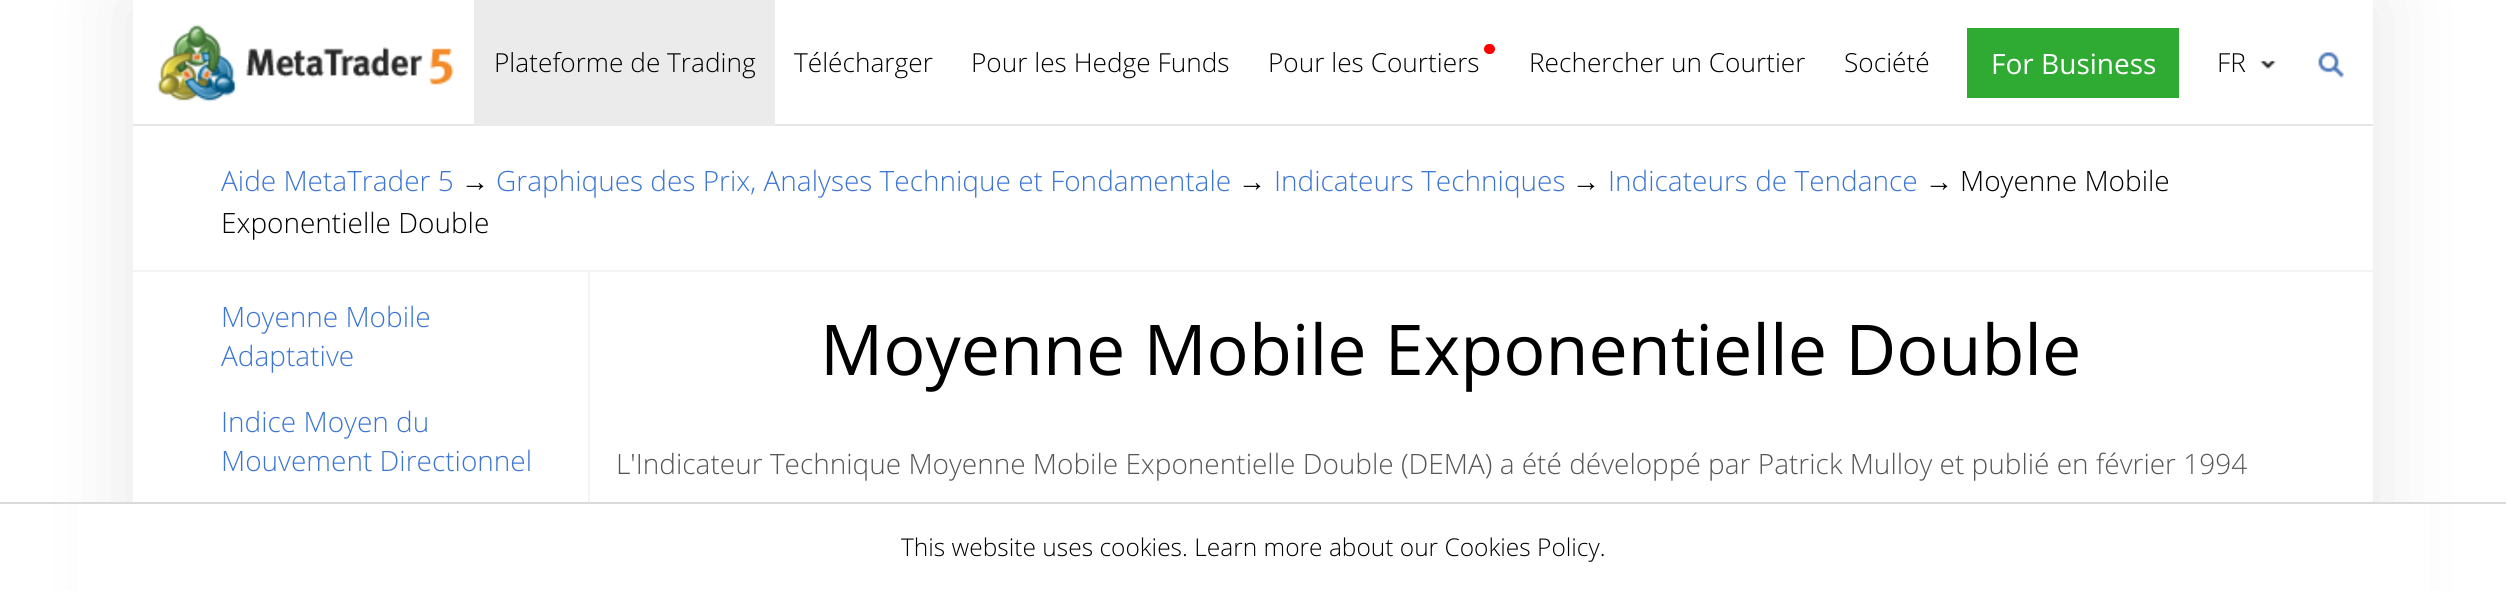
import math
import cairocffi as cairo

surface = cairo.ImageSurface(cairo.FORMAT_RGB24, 2506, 591)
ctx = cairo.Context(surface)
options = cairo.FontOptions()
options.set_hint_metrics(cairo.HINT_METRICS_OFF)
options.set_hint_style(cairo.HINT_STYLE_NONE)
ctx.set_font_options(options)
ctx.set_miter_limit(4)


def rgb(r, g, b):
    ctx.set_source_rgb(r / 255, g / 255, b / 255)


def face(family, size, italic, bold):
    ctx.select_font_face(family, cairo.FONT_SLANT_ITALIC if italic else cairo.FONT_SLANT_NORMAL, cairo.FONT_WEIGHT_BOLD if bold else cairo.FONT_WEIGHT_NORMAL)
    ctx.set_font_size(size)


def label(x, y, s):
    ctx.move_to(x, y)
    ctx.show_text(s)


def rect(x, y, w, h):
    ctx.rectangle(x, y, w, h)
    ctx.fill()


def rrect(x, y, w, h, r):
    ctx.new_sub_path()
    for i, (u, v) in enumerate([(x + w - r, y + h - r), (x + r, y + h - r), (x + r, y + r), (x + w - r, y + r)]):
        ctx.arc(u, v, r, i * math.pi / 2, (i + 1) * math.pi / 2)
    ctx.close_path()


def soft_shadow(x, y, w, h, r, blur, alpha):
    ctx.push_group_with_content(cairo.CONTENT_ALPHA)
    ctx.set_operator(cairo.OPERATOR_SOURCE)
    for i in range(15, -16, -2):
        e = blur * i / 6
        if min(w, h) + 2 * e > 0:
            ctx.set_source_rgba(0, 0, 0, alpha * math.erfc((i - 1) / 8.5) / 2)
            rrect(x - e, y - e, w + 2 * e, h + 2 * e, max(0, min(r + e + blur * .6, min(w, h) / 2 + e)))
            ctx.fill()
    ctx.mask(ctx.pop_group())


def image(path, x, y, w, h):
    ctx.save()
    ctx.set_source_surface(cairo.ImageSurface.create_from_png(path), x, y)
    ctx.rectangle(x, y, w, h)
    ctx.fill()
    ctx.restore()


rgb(255, 255, 255)
ctx.paint()
ctx.save()
ctx.set_fill_rule(cairo.FILL_RULE_EVEN_ODD)
ctx.new_path()
ctx.move_to(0, 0)
ctx.line_to(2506, 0)
ctx.line_to(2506, 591)
ctx.line_to(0, 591)
ctx.close_path()
ctx.move_to(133, 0)
ctx.line_to(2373, 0)
ctx.line_to(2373, 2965)
ctx.line_to(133, 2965)
ctx.close_path()
ctx.clip()
rgb(0, 0, 0)
soft_shadow(133, 0, 2240, 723, 0, 44, 0.1)
ctx.restore()
rgb(230, 230, 230)
rect(133, 124, 2240, 2)
image('image0.png', 157, 24, 297, 78)
rgb(235, 235, 235)
rect(474, 0, 301, 126)
face('Open Sans Light', 26.25, 0, 0)
rgb(0, 0, 0)
label(494, 72, 'Plateforme de Trading')
label(794, 72, 'Télécharger')
label(971, 72, 'Pour les Hedge Funds')
rgb(255, 0, 0)
rrect(1484, 44, 11, 10, 5)
ctx.fill()
rgb(0, 0, 0)
label(1268, 72, 'Pour les Courtiers')
label(1529, 72, 'Rechercher un Courtier')
label(1844, 72, 'Société')
rgb(47, 171, 52)
rect(1967, 28, 212, 70)
face('Open Sans', 28, 0, 0)
rgb(255, 255, 255)
label(1991, 74, 'For Business')
face('Open Sans Light', 26.25, 0, 0)
rgb(0, 0, 0)
label(2217, 72, 'FR')
image('image1.png', 2260, 60, 16, 9)
image('image2.png', 2318, 52, 26, 26)
rgb(243, 243, 243)
rect(133, 270, 2240, 2)
face('Open Sans Light', 28, 0, 0)
rgb(59, 117, 211)
label(221, 191, 'Aide MetaTrader 5')
face('Liberation Sans', 28, 0, 0)
rgb(0, 0, 0)
label(461, 191, '→')
face('Open Sans Light', 28, 0, 0)
rgb(59, 117, 211)
label(496, 191, 'Graphiques des Prix, Analyses Technique et Fondamentale')
face('Liberation Sans', 28, 0, 0)
rgb(0, 0, 0)
label(1238, 191, '→')
face('Open Sans Light', 28, 0, 0)
rgb(59, 117, 211)
label(1274, 191, 'Indicateurs Techniques')
face('Liberation Sans', 28, 0, 0)
rgb(0, 0, 0)
label(1572, 191, '→')
face('Open Sans Light', 28, 0, 0)
rgb(59, 117, 211)
label(1608, 191, 'Indicateurs de Tendance')
face('Liberation Sans', 28, 0, 0)
rgb(0, 0, 0)
label(1925, 191, '→')
face('Open Sans Light', 28, 0, 0)
label(1960, 191, 'Moyenne Mobile')
label(221, 233, 'Exponentielle Double')
rgb(59, 117, 211)
label(221, 327, 'Moyenne Mobile')
label(221, 366, 'Adaptative')
label(221, 432, 'Indice Moyen du')
label(221, 471, 'Mouvement Directionnel')
rgb(243, 243, 243)
rect(588, 271, 2, 231)
face('Open Sans', 70, 0, 0)
rgb(0, 0, 0)
label(820, 375, 'Moyenne Mobile Exponentielle Double')
face('Open Sans Light', 28, 0, 0)
rgb(86, 86, 86)
label(616, 474, 'L\'Indicateur Technique Moyenne Mobile Exponentielle Double (DEMA) a été développé par Patrick Mulloy et publié en février 1994')
rgb(255, 255, 255)
rect(77, 504, 2352, 87)
rgb(218, 218, 218)
rect(0, 502, 2506, 2)
face('Open Sans Light', 24.5, 0, 0)
rgb(0, 0, 0)
label(901, 556, 'This website uses cookies. Learn more about our Cookies Policy.')
surface.write_to_png('render.png')
